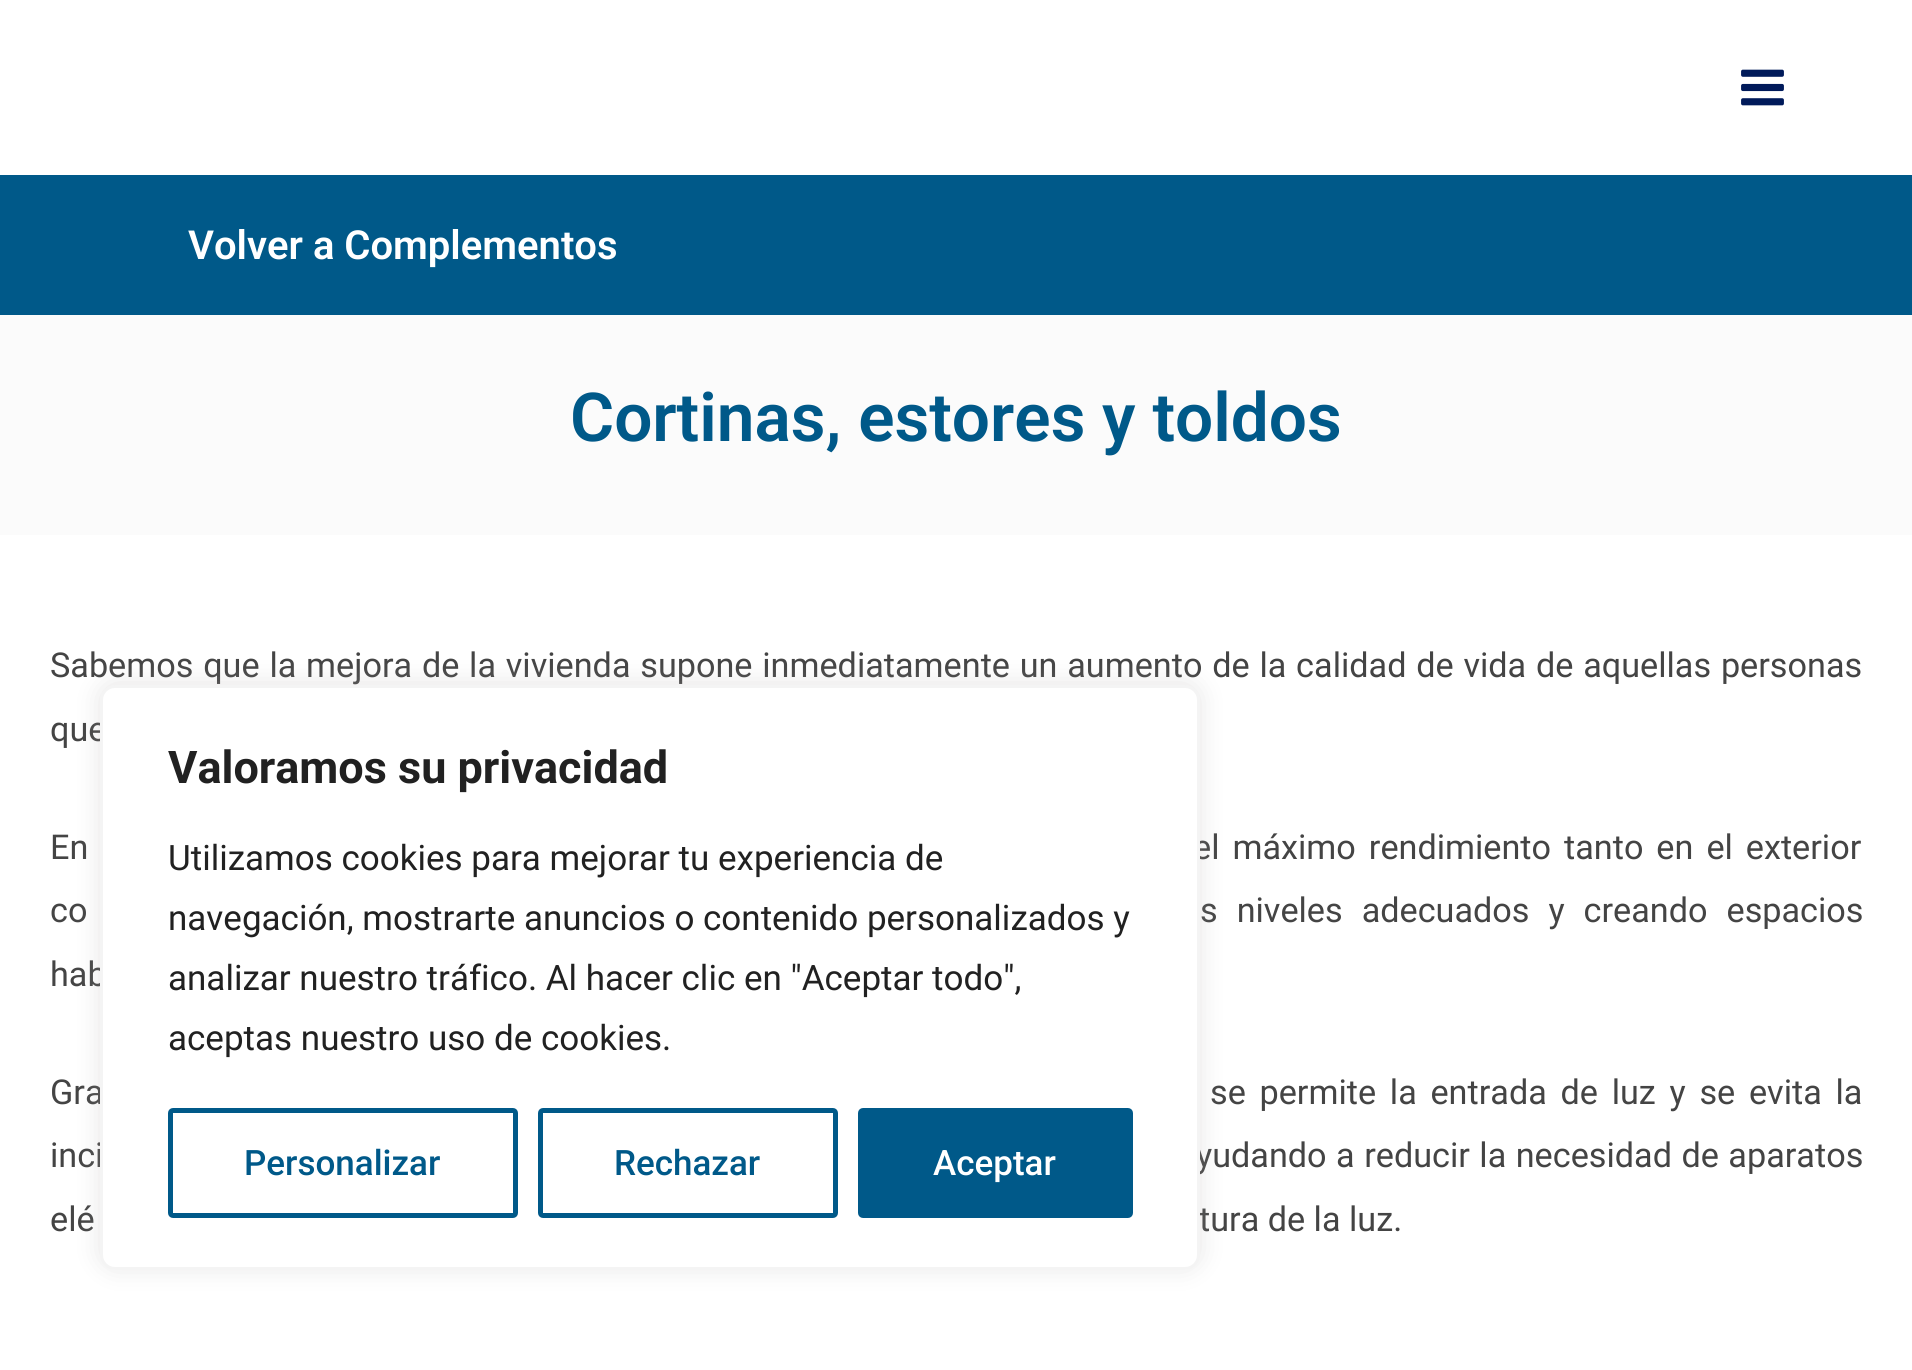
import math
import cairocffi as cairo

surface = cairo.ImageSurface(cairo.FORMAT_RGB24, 1912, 1370)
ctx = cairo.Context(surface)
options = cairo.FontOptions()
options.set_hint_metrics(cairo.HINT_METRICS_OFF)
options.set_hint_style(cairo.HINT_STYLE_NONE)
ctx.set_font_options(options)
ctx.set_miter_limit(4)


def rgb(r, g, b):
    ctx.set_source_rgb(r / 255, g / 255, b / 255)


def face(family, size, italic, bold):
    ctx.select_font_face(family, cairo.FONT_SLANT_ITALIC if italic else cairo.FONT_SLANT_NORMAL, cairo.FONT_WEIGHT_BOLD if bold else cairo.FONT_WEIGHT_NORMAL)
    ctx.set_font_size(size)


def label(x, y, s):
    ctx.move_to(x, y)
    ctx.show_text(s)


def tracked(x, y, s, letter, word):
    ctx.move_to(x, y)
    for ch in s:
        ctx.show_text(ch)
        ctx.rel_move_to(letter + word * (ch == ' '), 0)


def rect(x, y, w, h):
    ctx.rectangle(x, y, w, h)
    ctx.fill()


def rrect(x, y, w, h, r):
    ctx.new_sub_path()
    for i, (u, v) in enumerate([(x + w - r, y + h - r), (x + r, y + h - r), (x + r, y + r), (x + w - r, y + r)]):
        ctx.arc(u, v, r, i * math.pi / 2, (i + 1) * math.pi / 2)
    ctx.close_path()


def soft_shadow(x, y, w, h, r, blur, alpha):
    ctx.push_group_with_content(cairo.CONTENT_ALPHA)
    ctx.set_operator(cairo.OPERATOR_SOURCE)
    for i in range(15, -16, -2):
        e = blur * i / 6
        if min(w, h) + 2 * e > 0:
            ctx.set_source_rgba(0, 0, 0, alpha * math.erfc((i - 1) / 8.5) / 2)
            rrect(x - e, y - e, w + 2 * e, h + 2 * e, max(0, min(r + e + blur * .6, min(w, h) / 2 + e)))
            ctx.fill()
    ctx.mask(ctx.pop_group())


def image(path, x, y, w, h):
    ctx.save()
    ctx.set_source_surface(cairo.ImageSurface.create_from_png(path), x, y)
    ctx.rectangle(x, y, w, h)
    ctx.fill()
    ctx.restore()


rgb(255, 255, 255)
ctx.paint()
image('image0.png', 1741, 69, 43, 37)
rgb(0, 89, 137)
rect(0, 175, 1912, 140)
face('Roboto SemiBold', 40, 0, 0)
rgb(255, 255, 255)
label(188, 259, 'Volver a Complementos')
rgb(251, 251, 251)
rect(0, 315, 1912, 220)
face('Roboto SemiBold', 67.5, 0, 0)
rgb(0, 89, 137)
label(570, 441, 'Cortinas, estores y toldos')
face('Roboto', 34.2, 0, 0)
rgb(68, 68, 68)
tracked(50, 677, 'Sabemos que la mejora de la vivienda supone inmediatamente un aumento de la calidad de vida de aquellas personas', 0, 1.3)
label(50, 741, 'que')
tracked(50, 859, 'En', 0, 4.5)
tracked(1193, 859, 'el máximo rendimiento tanto en el exterior', 0, 4.5)
tracked(50, 922, 'co', 0, 10.5)
tracked(1200, 922, 's niveles adecuados y creando espacios', 0, 10.5)
label(50, 986, 'hab')
tracked(50, 1104, 'Gra', 0, 5.25)
tracked(1210, 1104, 'se permite la entrada de luz y se evita la', 0, 5.25)
tracked(50, 1167, 'inci', 0, 1)
tracked(1196, 1167, 'yudando a reducir la necesidad de aparatos', 0, 1)
label(50, 1231, 'elé')
label(1199, 1231, 'tura de la luz.')
rgb(172, 171, 171)
soft_shadow(100, 683, 1100, 585, 15, 12.5, 0.3)
rgb(255, 255, 255)
rrect(101.5, 686.5, 1097, 582, 13.5)
ctx.fill_preserve()
rgb(244, 244, 244)
ctx.set_line_width(3)
ctx.stroke()
face('Roboto', 45, 0, 1)
rgb(33, 33, 33)
label(168, 783, 'Valoramos su privacidad')
face('Roboto', 35, 0, 0)
label(168, 870, 'Utilizamos cookies para mejorar tu experiencia de')
label(168, 930, 'navegación, mostrarte anuncios o contenido personalizados y')
label(168, 990, 'analizar nuestro tráfico. Al hacer clic en "Aceptar todo",')
label(168, 1050, 'aceptas nuestro uso de cookies.')
rrect(170.5, 1110.5, 345, 105, 2.5)
rgb(0, 89, 137)
ctx.set_line_width(5)
ctx.stroke()
face('Roboto Medium', 35, 0, 0)
label(244, 1175, 'Personalizar')
rrect(540.5, 1110.5, 295, 105, 2.5)
ctx.stroke()
label(614, 1175, 'Rechazar')
rrect(860.5, 1110.5, 270, 105, 2.5)
ctx.fill_preserve()
ctx.stroke()
rgb(255, 255, 255)
label(933, 1175, 'Aceptar')
surface.write_to_png('render.png')
